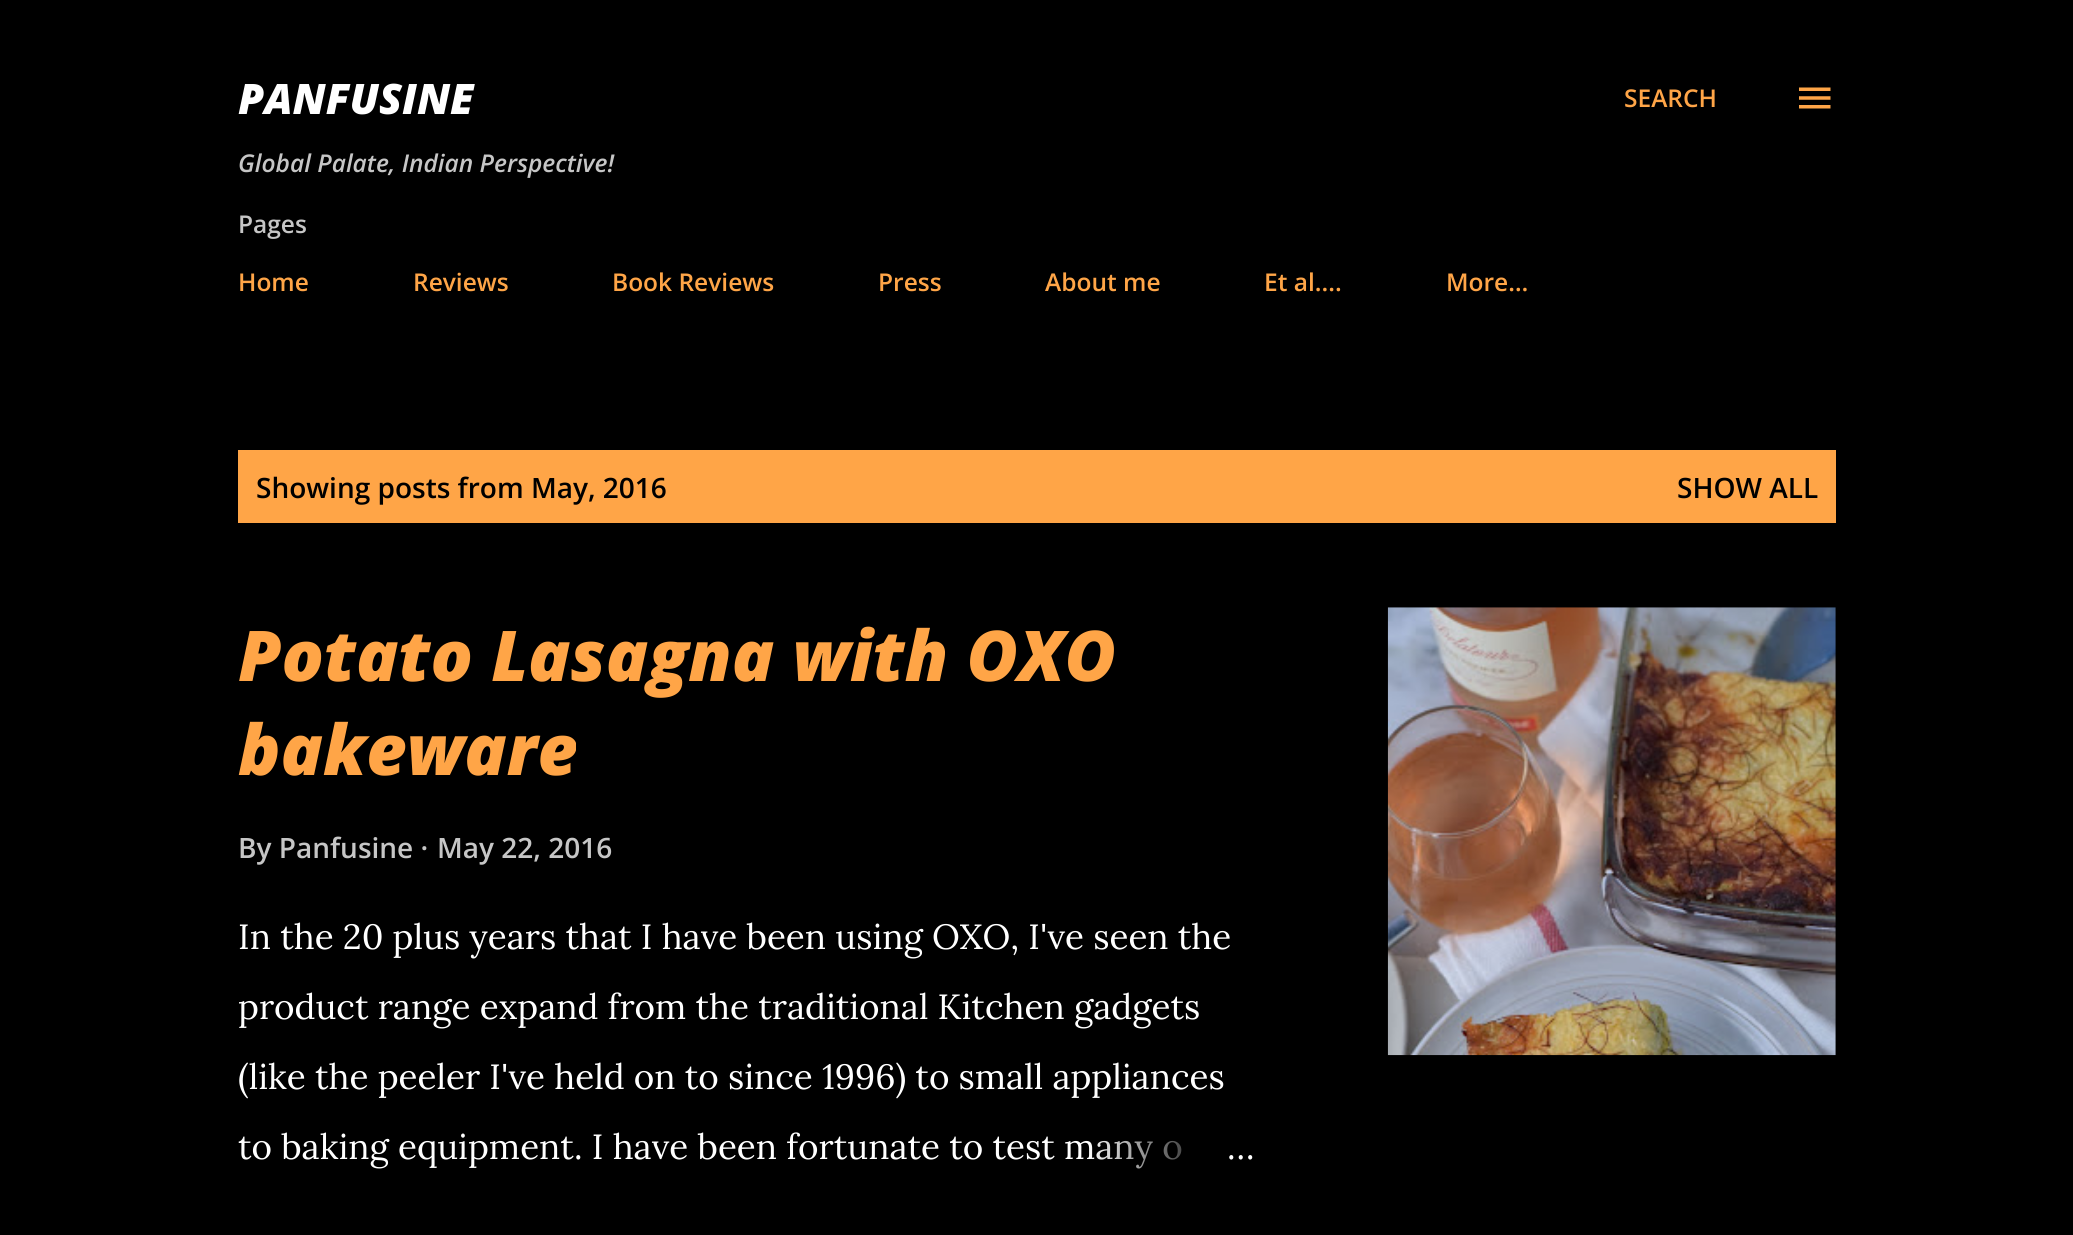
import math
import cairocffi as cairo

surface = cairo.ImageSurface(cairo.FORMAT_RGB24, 2073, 1235)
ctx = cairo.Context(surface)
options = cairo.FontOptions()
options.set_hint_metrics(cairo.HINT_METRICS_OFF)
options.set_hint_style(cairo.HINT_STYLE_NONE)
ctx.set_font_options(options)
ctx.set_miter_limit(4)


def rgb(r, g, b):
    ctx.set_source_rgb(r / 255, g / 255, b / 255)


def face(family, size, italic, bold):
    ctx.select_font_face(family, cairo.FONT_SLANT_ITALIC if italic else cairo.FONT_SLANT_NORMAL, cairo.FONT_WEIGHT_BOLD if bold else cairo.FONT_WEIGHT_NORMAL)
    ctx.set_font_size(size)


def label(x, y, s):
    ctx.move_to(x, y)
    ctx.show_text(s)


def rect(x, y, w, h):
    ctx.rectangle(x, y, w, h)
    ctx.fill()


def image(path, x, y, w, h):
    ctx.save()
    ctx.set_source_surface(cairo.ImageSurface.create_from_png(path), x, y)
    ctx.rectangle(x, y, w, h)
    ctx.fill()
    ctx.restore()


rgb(0, 0, 0)
ctx.paint()
face('Open Sans ExtraBold', 42, 1, 0)
rgb(255, 255, 255)
label(238, 114, 'PANFUSINE')
face('Open Sans SemiBold', 24.5, 1, 0)
rgb(198, 198, 198)
label(238, 172, 'Global Palate, Indian Perspective!')
face('Open Sans SemiBold', 24.5, 0, 0)
rgb(255, 165, 71)
label(1624, 107, 'SEARCH')
image('image0.png', 1799, 87, 32, 22)
rgb(198, 198, 198)
label(238, 233, 'Pages')
rgb(255, 165, 71)
label(238, 291, 'Home')
label(413, 291, 'Reviews')
label(612, 291, 'Book Reviews')
label(878, 291, 'Press')
label(1045, 291, 'About me')
label(1264, 291, 'Et al....')
label(1446, 291, 'More…')
rect(238, 450, 1598, 73)
face('Open Sans SemiBold', 28, 0, 0)
rgb(0, 0, 0)
label(256, 498, 'Showing posts from May, 2016')
label(1677, 498, 'SHOW ALL')
face('Open Sans ExtraBold', 70, 1, 0)
rgb(255, 165, 71)
label(238, 681, 'Potato Lasagna with OXO')
label(238, 775, 'bakeware')
face('Open Sans SemiBold', 28, 0, 0)
rgb(198, 198, 198)
label(238, 858, 'By Panfusine ·')
label(437, 858, 'May 22, 2016')
face('Lora', 35, 0, 0)
rgb(255, 255, 255)
label(238, 949, 'In the 20 plus years that I have been using OXO, I\'ve seen the')
label(238, 1019, 'product range expand from the traditional Kitchen gadgets')
label(238, 1089, '(like the peeler I\'ve held on to since 1996) to small appliances')
label(238, 1159, 'to baking equipment. I have been fortunate to test many o')
gradient = cairo.LinearGradient(1255, 1146, 1087, 1146)
gradient.add_color_stop_rgba(0, 0, 0, 0, 1)
gradient.add_color_stop_rgba(0.2, 0, 0, 0, 1)
gradient.add_color_stop_rgba(1, 0, 0, 0, 0)
ctx.set_source(gradient)
rect(1090, 1140, 92, 29)
rgb(255, 255, 255)
label(1227, 1159, '…')
image('image1.png', 1387, 607, 449, 449)
surface.write_to_png('render.png')
